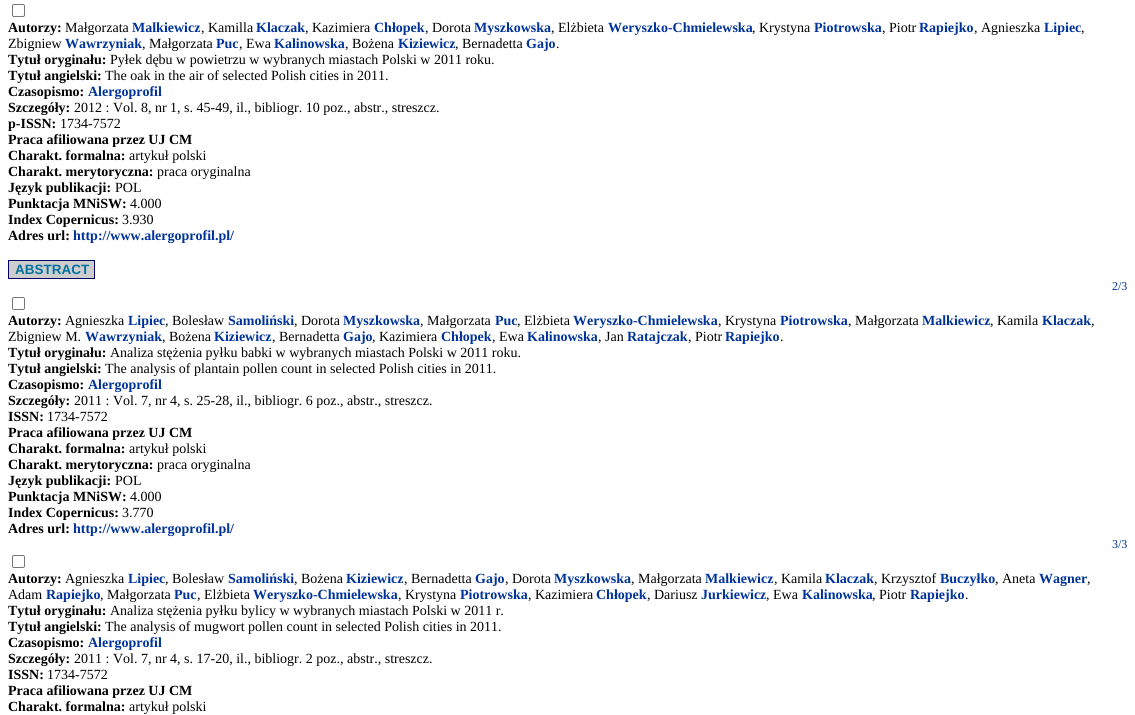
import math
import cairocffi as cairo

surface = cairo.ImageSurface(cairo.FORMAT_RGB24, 1135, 715)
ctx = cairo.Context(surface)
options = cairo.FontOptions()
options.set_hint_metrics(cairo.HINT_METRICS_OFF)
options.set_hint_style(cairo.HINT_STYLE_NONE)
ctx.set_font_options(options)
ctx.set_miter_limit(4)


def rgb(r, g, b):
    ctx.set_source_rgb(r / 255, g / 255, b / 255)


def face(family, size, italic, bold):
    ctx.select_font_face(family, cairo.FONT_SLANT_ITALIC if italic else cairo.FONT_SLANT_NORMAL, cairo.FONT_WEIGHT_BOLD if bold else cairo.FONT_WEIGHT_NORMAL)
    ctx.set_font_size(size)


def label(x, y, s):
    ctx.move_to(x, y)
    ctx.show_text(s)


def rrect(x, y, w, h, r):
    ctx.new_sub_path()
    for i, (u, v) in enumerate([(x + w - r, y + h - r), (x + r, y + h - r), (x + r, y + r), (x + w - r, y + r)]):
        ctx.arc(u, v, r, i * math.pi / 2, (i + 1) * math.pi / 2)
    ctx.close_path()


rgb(255, 255, 255)
ctx.paint()
rrect(12.5, 4.5, 12, 12, 1.5)
rgb(118, 118, 118)
ctx.set_line_width(1)
ctx.stroke()
face('Liberation Serif', 14, 0, 1)
rgb(0, 0, 0)
label(8, 32, 'Autorzy:')
face('Liberation Serif', 14, 0, 0)
label(65, 32, 'Małgorzata')
face('Liberation Serif', 14, 0, 1)
rgb(0, 51, 153)
label(132, 32, 'Malkiewicz')
face('Liberation Serif', 14, 0, 0)
rgb(0, 0, 0)
label(201, 32, ', Kamilla')
face('Liberation Serif', 14, 0, 1)
rgb(0, 51, 153)
label(256, 32, 'Klaczak')
face('Liberation Serif', 14, 0, 0)
rgb(0, 0, 0)
label(305, 32, ', Kazimiera')
face('Liberation Serif', 14, 0, 1)
rgb(0, 51, 153)
label(374, 32, 'Chłopek')
face('Liberation Serif', 14, 0, 0)
rgb(0, 0, 0)
label(425, 32, ', Dorota')
face('Liberation Serif', 14, 0, 1)
rgb(0, 51, 153)
label(474, 32, 'Myszkowska')
face('Liberation Serif', 14, 0, 0)
rgb(0, 0, 0)
label(551, 32, ', Elżbieta')
face('Liberation Serif', 14, 0, 1)
rgb(0, 51, 153)
label(608, 32, 'Weryszko-Chmielewska')
face('Liberation Serif', 14, 0, 0)
rgb(0, 0, 0)
label(752, 32, ', Krystyna')
face('Liberation Serif', 14, 0, 1)
rgb(0, 51, 153)
label(814, 32, 'Piotrowska')
face('Liberation Serif', 14, 0, 0)
rgb(0, 0, 0)
label(882, 32, ', Piotr')
face('Liberation Serif', 14, 0, 1)
rgb(0, 51, 153)
label(919, 32, 'Rapiejko')
face('Liberation Serif', 14, 0, 0)
rgb(0, 0, 0)
label(974, 32, ', Agnieszka')
face('Liberation Serif', 14, 0, 1)
rgb(0, 51, 153)
label(1044, 32, 'Lipiec')
face('Liberation Serif', 14, 0, 0)
rgb(0, 0, 0)
label(1081, 32, ',')
label(8, 48, 'Zbigniew')
face('Liberation Serif', 14, 0, 1)
rgb(0, 51, 153)
label(65, 48, 'Wawrzyniak')
face('Liberation Serif', 14, 0, 0)
rgb(0, 0, 0)
label(142, 48, ', Małgorzata')
face('Liberation Serif', 14, 0, 1)
rgb(0, 51, 153)
label(216, 48, 'Puc')
face('Liberation Serif', 14, 0, 0)
rgb(0, 0, 0)
label(239, 48, ', Ewa')
face('Liberation Serif', 14, 0, 1)
rgb(0, 51, 153)
label(274, 48, 'Kalinowska')
face('Liberation Serif', 14, 0, 0)
rgb(0, 0, 0)
label(345, 48, ', Bożena')
face('Liberation Serif', 14, 0, 1)
rgb(0, 51, 153)
label(398, 48, 'Kiziewicz')
face('Liberation Serif', 14, 0, 0)
rgb(0, 0, 0)
label(455, 48, ', Bernadetta')
face('Liberation Serif', 14, 0, 1)
rgb(0, 51, 153)
label(526, 48, 'Gajo')
face('Liberation Serif', 14, 0, 0)
rgb(0, 0, 0)
label(556, 48, '.')
face('Liberation Serif', 14, 0, 1)
label(8, 64, 'Tytuł oryginału:')
face('Liberation Serif', 14, 0, 0)
label(110, 64, 'Pyłek dębu w powietrzu w wybranych miastach Polski w 2011 roku.')
face('Liberation Serif', 14, 0, 1)
label(8, 80, 'Tytuł angielski:')
face('Liberation Serif', 14, 0, 0)
label(105, 80, 'The oak in the air of selected Polish cities in 2011.')
face('Liberation Serif', 14, 0, 1)
label(8, 96, 'Czasopismo:')
rgb(0, 51, 153)
label(88, 96, 'Alergoprofil')
rgb(0, 0, 0)
label(8, 112, 'Szczegóły:')
face('Liberation Serif', 14, 0, 0)
label(74, 112, '2012 : Vol. 8, nr 1, s. 45-49, il., bibliogr. 10 poz., abstr., streszcz.')
face('Liberation Serif', 14, 0, 1)
label(8, 128, 'p-ISSN:')
face('Liberation Serif', 14, 0, 0)
label(60, 128, '1734-7572')
face('Liberation Serif', 14, 0, 1)
label(8, 144, 'Praca afiliowana przez UJ CM')
label(8, 160, 'Charakt. formalna:')
face('Liberation Serif', 14, 0, 0)
label(129, 160, 'artykuł polski')
face('Liberation Serif', 14, 0, 1)
label(8, 176, 'Charakt. merytoryczna:')
face('Liberation Serif', 14, 0, 0)
label(157, 176, 'praca oryginalna')
face('Liberation Serif', 14, 0, 1)
label(8, 192, 'Język publikacji:')
face('Liberation Serif', 14, 0, 0)
label(115, 192, 'POL')
face('Liberation Serif', 14, 0, 1)
label(8, 208, 'Punktacja MNiSW:')
face('Liberation Serif', 14, 0, 0)
label(130, 208, '4.000')
face('Liberation Serif', 14, 0, 1)
label(8, 224, 'Index Copernicus:')
face('Liberation Serif', 14, 0, 0)
label(122, 224, '3.930')
face('Liberation Serif', 14, 0, 1)
label(8, 240, 'Adres url:')
rgb(0, 51, 153)
label(73, 240, 'http://www.alergoprofil.pl/')
rgb(205, 205, 205)
ctx.rectangle(8.5, 260.5, 86, 18)
ctx.fill_preserve()
rgb(0, 0, 102)
ctx.stroke()
face('Liberation Sans', 13.5, 0, 1)
rgb(0, 112, 158)
label(15, 274, 'ABSTRACT')
face('Liberation Serif', 12, 0, 0)
rgb(0, 51, 153)
label(1112, 290, '2/3')
rrect(12.5, 297.5, 12, 12, 1.5)
rgb(118, 118, 118)
ctx.stroke()
face('Liberation Serif', 14, 0, 1)
rgb(0, 0, 0)
label(8, 325, 'Autorzy:')
face('Liberation Serif', 14, 0, 0)
label(65, 325, 'Agnieszka')
face('Liberation Serif', 14, 0, 1)
rgb(0, 51, 153)
label(128, 325, 'Lipiec')
face('Liberation Serif', 14, 0, 0)
rgb(0, 0, 0)
label(165, 325, ', Bolesław')
face('Liberation Serif', 14, 0, 1)
rgb(0, 51, 153)
label(228, 325, 'Samoliński')
face('Liberation Serif', 14, 0, 0)
rgb(0, 0, 0)
label(294, 325, ', Dorota')
face('Liberation Serif', 14, 0, 1)
rgb(0, 51, 153)
label(343, 325, 'Myszkowska')
face('Liberation Serif', 14, 0, 0)
rgb(0, 0, 0)
label(420, 325, ', Małgorzata')
face('Liberation Serif', 14, 0, 1)
rgb(0, 51, 153)
label(495, 325, 'Puc')
face('Liberation Serif', 14, 0, 0)
rgb(0, 0, 0)
label(517, 325, ', Elżbieta')
face('Liberation Serif', 14, 0, 1)
rgb(0, 51, 153)
label(573, 325, 'Weryszko-Chmielewska')
face('Liberation Serif', 14, 0, 0)
rgb(0, 0, 0)
label(718, 325, ', Krystyna')
face('Liberation Serif', 14, 0, 1)
rgb(0, 51, 153)
label(780, 325, 'Piotrowska')
face('Liberation Serif', 14, 0, 0)
rgb(0, 0, 0)
label(848, 325, ', Małgorzata')
face('Liberation Serif', 14, 0, 1)
rgb(0, 51, 153)
label(922, 325, 'Malkiewicz')
face('Liberation Serif', 14, 0, 0)
rgb(0, 0, 0)
label(990, 325, ', Kamila')
face('Liberation Serif', 14, 0, 1)
rgb(0, 51, 153)
label(1042, 325, 'Klaczak')
face('Liberation Serif', 14, 0, 0)
rgb(0, 0, 0)
label(1091, 325, ',')
label(8, 341, 'Zbigniew M.')
face('Liberation Serif', 14, 0, 1)
rgb(0, 51, 153)
label(85, 341, 'Wawrzyniak')
face('Liberation Serif', 14, 0, 0)
rgb(0, 0, 0)
label(162, 341, ', Bożena')
face('Liberation Serif', 14, 0, 1)
rgb(0, 51, 153)
label(214, 341, 'Kiziewicz')
face('Liberation Serif', 14, 0, 0)
rgb(0, 0, 0)
label(272, 341, ', Bernadetta')
face('Liberation Serif', 14, 0, 1)
rgb(0, 51, 153)
label(343, 341, 'Gajo')
face('Liberation Serif', 14, 0, 0)
rgb(0, 0, 0)
label(372, 341, ', Kazimiera')
face('Liberation Serif', 14, 0, 1)
rgb(0, 51, 153)
label(441, 341, 'Chłopek')
face('Liberation Serif', 14, 0, 0)
rgb(0, 0, 0)
label(492, 341, ', Ewa')
face('Liberation Serif', 14, 0, 1)
rgb(0, 51, 153)
label(527, 341, 'Kalinowska')
face('Liberation Serif', 14, 0, 0)
rgb(0, 0, 0)
label(598, 341, ', Jan')
face('Liberation Serif', 14, 0, 1)
rgb(0, 51, 153)
label(627, 341, 'Ratajczak')
face('Liberation Serif', 14, 0, 0)
rgb(0, 0, 0)
label(688, 341, ', Piotr')
face('Liberation Serif', 14, 0, 1)
rgb(0, 51, 153)
label(725, 341, 'Rapiejko')
face('Liberation Serif', 14, 0, 0)
rgb(0, 0, 0)
label(780, 341, '.')
face('Liberation Serif', 14, 0, 1)
label(8, 357, 'Tytuł oryginału:')
face('Liberation Serif', 14, 0, 0)
label(110, 357, 'Analiza stężenia pyłku babki w wybranych miastach Polski w 2011 roku.')
face('Liberation Serif', 14, 0, 1)
label(8, 373, 'Tytuł angielski:')
face('Liberation Serif', 14, 0, 0)
label(105, 373, 'The analysis of plantain pollen count in selected Polish cities in 2011.')
face('Liberation Serif', 14, 0, 1)
label(8, 389, 'Czasopismo:')
rgb(0, 51, 153)
label(88, 389, 'Alergoprofil')
rgb(0, 0, 0)
label(8, 405, 'Szczegóły:')
face('Liberation Serif', 14, 0, 0)
label(74, 405, '2011 : Vol. 7, nr 4, s. 25-28, il., bibliogr. 6 poz., abstr., streszcz.')
face('Liberation Serif', 14, 0, 1)
label(8, 421, 'ISSN:')
face('Liberation Serif', 14, 0, 0)
label(47, 421, '1734-7572')
face('Liberation Serif', 14, 0, 1)
label(8, 437, 'Praca afiliowana przez UJ CM')
label(8, 453, 'Charakt. formalna:')
face('Liberation Serif', 14, 0, 0)
label(129, 453, 'artykuł polski')
face('Liberation Serif', 14, 0, 1)
label(8, 469, 'Charakt. merytoryczna:')
face('Liberation Serif', 14, 0, 0)
label(157, 469, 'praca oryginalna')
face('Liberation Serif', 14, 0, 1)
label(8, 485, 'Język publikacji:')
face('Liberation Serif', 14, 0, 0)
label(115, 485, 'POL')
face('Liberation Serif', 14, 0, 1)
label(8, 501, 'Punktacja MNiSW:')
face('Liberation Serif', 14, 0, 0)
label(130, 501, '4.000')
face('Liberation Serif', 14, 0, 1)
label(8, 517, 'Index Copernicus:')
face('Liberation Serif', 14, 0, 0)
label(122, 517, '3.770')
face('Liberation Serif', 14, 0, 1)
label(8, 533, 'Adres url:')
rgb(0, 51, 153)
label(73, 533, 'http://www.alergoprofil.pl/')
face('Liberation Serif', 12, 0, 0)
label(1112, 548, '3/3')
rrect(12.5, 555.5, 12, 12, 1.5)
rgb(118, 118, 118)
ctx.stroke()
face('Liberation Serif', 14, 0, 1)
rgb(0, 0, 0)
label(8, 583, 'Autorzy:')
face('Liberation Serif', 14, 0, 0)
label(65, 583, 'Agnieszka')
face('Liberation Serif', 14, 0, 1)
rgb(0, 51, 153)
label(128, 583, 'Lipiec')
face('Liberation Serif', 14, 0, 0)
rgb(0, 0, 0)
label(165, 583, ', Bolesław')
face('Liberation Serif', 14, 0, 1)
rgb(0, 51, 153)
label(228, 583, 'Samoliński')
face('Liberation Serif', 14, 0, 0)
rgb(0, 0, 0)
label(294, 583, ', Bożena')
face('Liberation Serif', 14, 0, 1)
rgb(0, 51, 153)
label(346, 583, 'Kiziewicz')
face('Liberation Serif', 14, 0, 0)
rgb(0, 0, 0)
label(404, 583, ', Bernadetta')
face('Liberation Serif', 14, 0, 1)
rgb(0, 51, 153)
label(475, 583, 'Gajo')
face('Liberation Serif', 14, 0, 0)
rgb(0, 0, 0)
label(505, 583, ', Dorota')
face('Liberation Serif', 14, 0, 1)
rgb(0, 51, 153)
label(554, 583, 'Myszkowska')
face('Liberation Serif', 14, 0, 0)
rgb(0, 0, 0)
label(631, 583, ', Małgorzata')
face('Liberation Serif', 14, 0, 1)
rgb(0, 51, 153)
label(705, 583, 'Malkiewicz')
face('Liberation Serif', 14, 0, 0)
rgb(0, 0, 0)
label(774, 583, ', Kamila')
face('Liberation Serif', 14, 0, 1)
rgb(0, 51, 153)
label(825, 583, 'Klaczak')
face('Liberation Serif', 14, 0, 0)
rgb(0, 0, 0)
label(874, 583, ', Krzysztof')
face('Liberation Serif', 14, 0, 1)
rgb(0, 51, 153)
label(940, 583, 'Buczyłko')
face('Liberation Serif', 14, 0, 0)
rgb(0, 0, 0)
label(995, 583, ', Aneta')
face('Liberation Serif', 14, 0, 1)
rgb(0, 51, 153)
label(1039, 583, 'Wagner')
face('Liberation Serif', 14, 0, 0)
rgb(0, 0, 0)
label(1087, 583, ',')
label(8, 599, 'Adam')
face('Liberation Serif', 14, 0, 1)
rgb(0, 51, 153)
label(46, 599, 'Rapiejko')
face('Liberation Serif', 14, 0, 0)
rgb(0, 0, 0)
label(100, 599, ', Małgorzata')
face('Liberation Serif', 14, 0, 1)
rgb(0, 51, 153)
label(174, 599, 'Puc')
face('Liberation Serif', 14, 0, 0)
rgb(0, 0, 0)
label(197, 599, ', Elżbieta')
face('Liberation Serif', 14, 0, 1)
rgb(0, 51, 153)
label(253, 599, 'Weryszko-Chmielewska')
face('Liberation Serif', 14, 0, 0)
rgb(0, 0, 0)
label(398, 599, ', Krystyna')
face('Liberation Serif', 14, 0, 1)
rgb(0, 51, 153)
label(460, 599, 'Piotrowska')
face('Liberation Serif', 14, 0, 0)
rgb(0, 0, 0)
label(528, 599, ', Kazimiera')
face('Liberation Serif', 14, 0, 1)
rgb(0, 51, 153)
label(596, 599, 'Chłopek')
face('Liberation Serif', 14, 0, 0)
rgb(0, 0, 0)
label(647, 599, ', Dariusz')
face('Liberation Serif', 14, 0, 1)
rgb(0, 51, 153)
label(701, 599, 'Jurkiewicz')
face('Liberation Serif', 14, 0, 0)
rgb(0, 0, 0)
label(766, 599, ', Ewa')
face('Liberation Serif', 14, 0, 1)
rgb(0, 51, 153)
label(802, 599, 'Kalinowska')
face('Liberation Serif', 14, 0, 0)
rgb(0, 0, 0)
label(872, 599, ', Piotr')
face('Liberation Serif', 14, 0, 1)
rgb(0, 51, 153)
label(910, 599, 'Rapiejko')
face('Liberation Serif', 14, 0, 0)
rgb(0, 0, 0)
label(965, 599, '.')
face('Liberation Serif', 14, 0, 1)
label(8, 615, 'Tytuł oryginału:')
face('Liberation Serif', 14, 0, 0)
label(110, 615, 'Analiza stężenia pyłku bylicy w wybranych miastach Polski w 2011 r.')
face('Liberation Serif', 14, 0, 1)
label(8, 631, 'Tytuł angielski:')
face('Liberation Serif', 14, 0, 0)
label(105, 631, 'The analysis of mugwort pollen count in selected Polish cities in 2011.')
face('Liberation Serif', 14, 0, 1)
label(8, 647, 'Czasopismo:')
rgb(0, 51, 153)
label(88, 647, 'Alergoprofil')
rgb(0, 0, 0)
label(8, 663, 'Szczegóły:')
face('Liberation Serif', 14, 0, 0)
label(74, 663, '2011 : Vol. 7, nr 4, s. 17-20, il., bibliogr. 2 poz., abstr., streszcz.')
face('Liberation Serif', 14, 0, 1)
label(8, 679, 'ISSN:')
face('Liberation Serif', 14, 0, 0)
label(47, 679, '1734-7572')
face('Liberation Serif', 14, 0, 1)
label(8, 695, 'Praca afiliowana przez UJ CM')
label(8, 711, 'Charakt. formalna:')
face('Liberation Serif', 14, 0, 0)
label(129, 711, 'artykuł polski')
surface.write_to_png('render.png')
